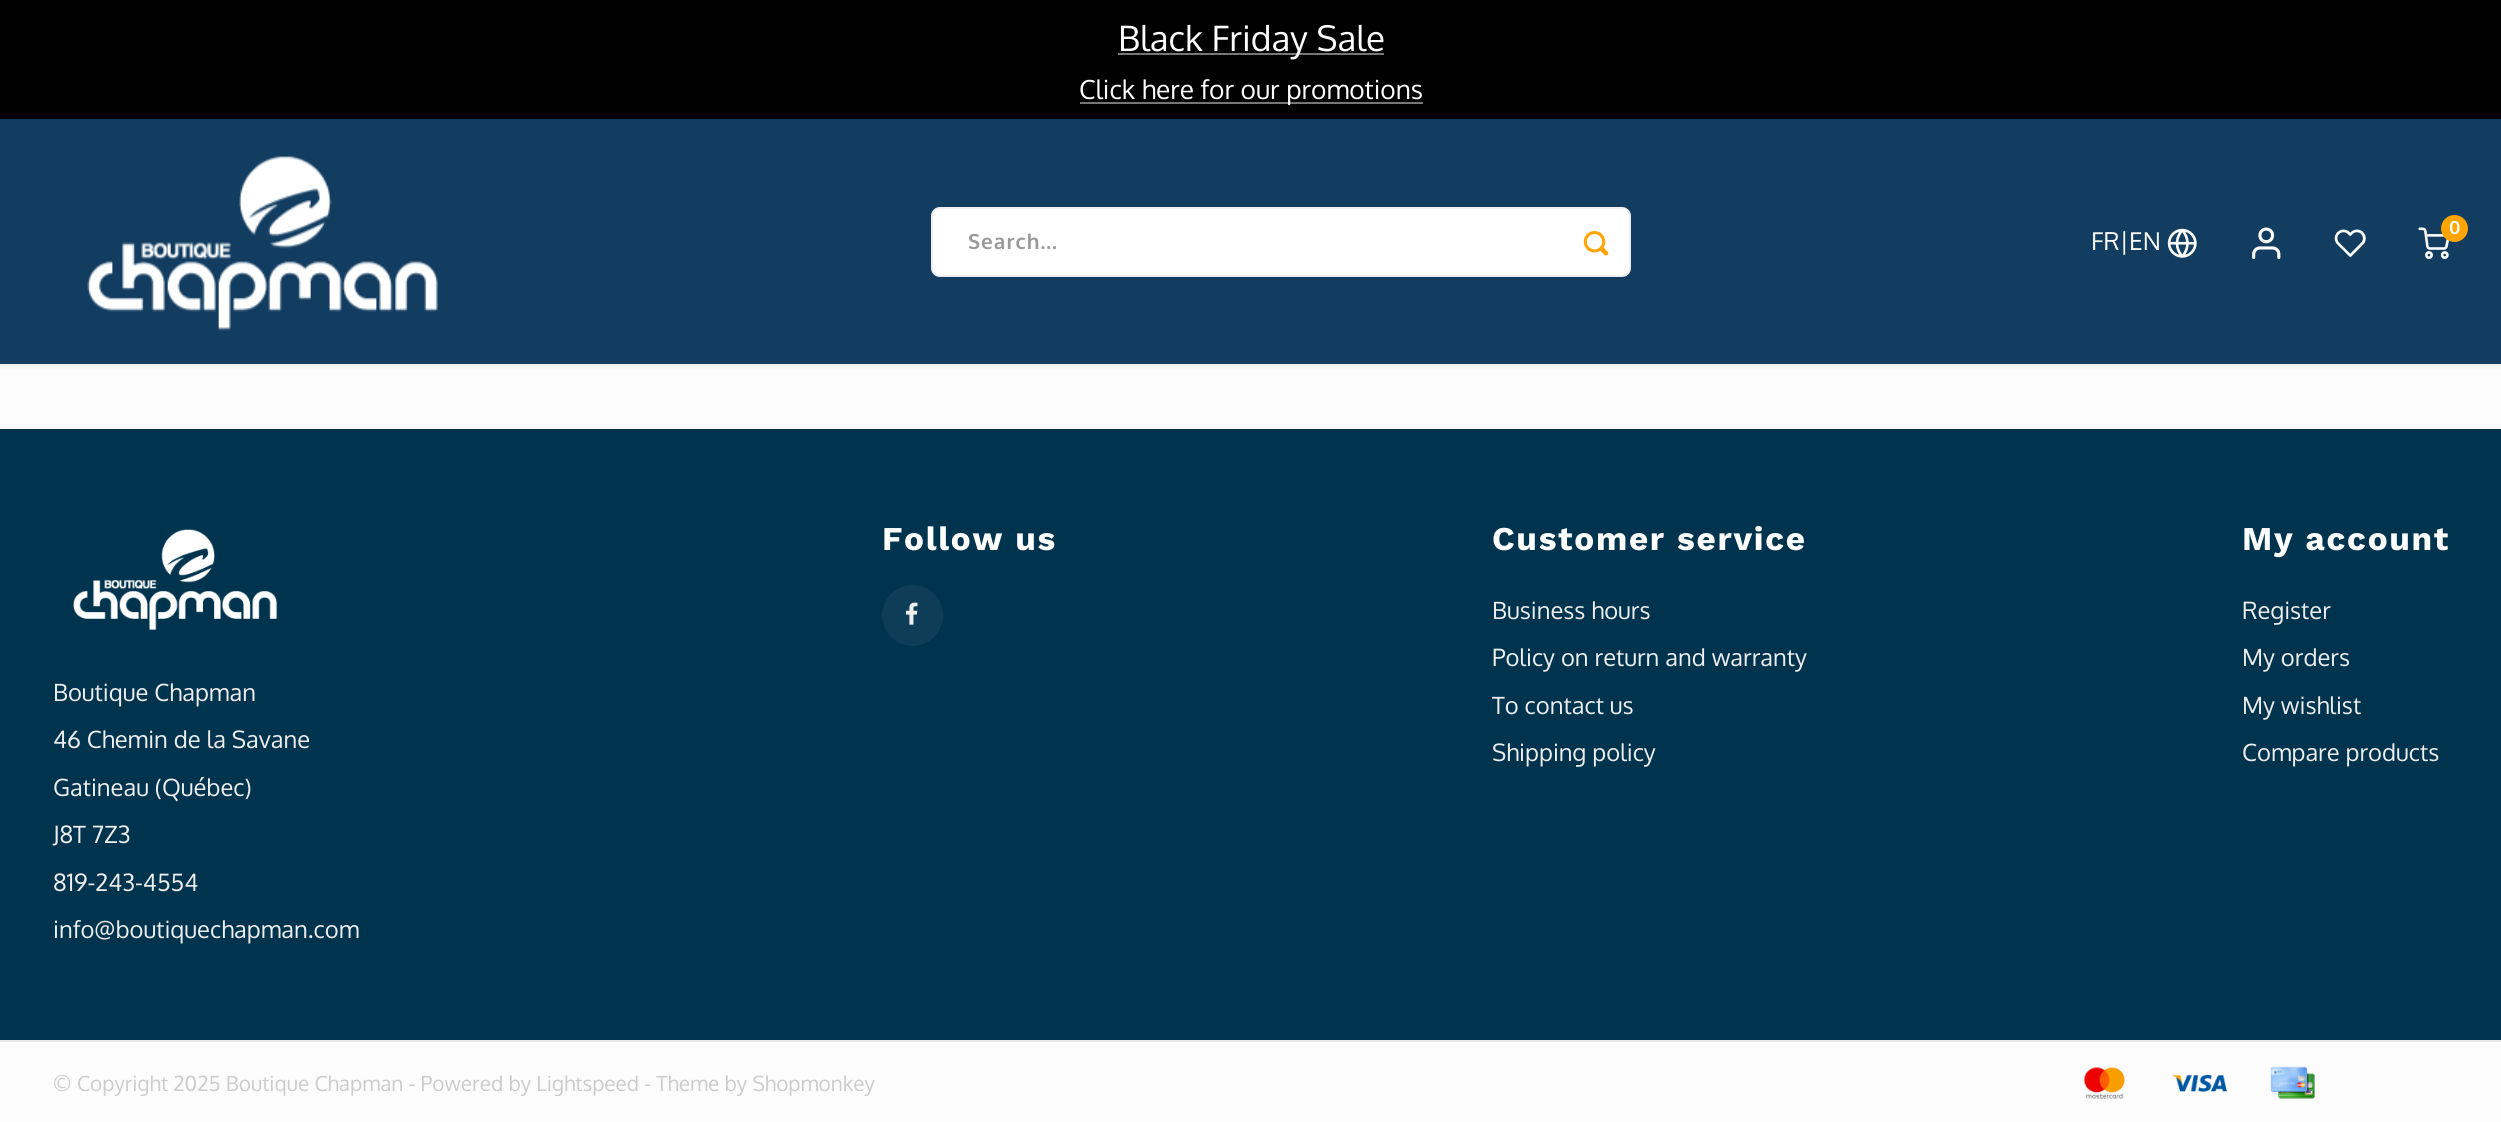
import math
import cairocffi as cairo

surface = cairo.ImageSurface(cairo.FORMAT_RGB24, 2501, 1122)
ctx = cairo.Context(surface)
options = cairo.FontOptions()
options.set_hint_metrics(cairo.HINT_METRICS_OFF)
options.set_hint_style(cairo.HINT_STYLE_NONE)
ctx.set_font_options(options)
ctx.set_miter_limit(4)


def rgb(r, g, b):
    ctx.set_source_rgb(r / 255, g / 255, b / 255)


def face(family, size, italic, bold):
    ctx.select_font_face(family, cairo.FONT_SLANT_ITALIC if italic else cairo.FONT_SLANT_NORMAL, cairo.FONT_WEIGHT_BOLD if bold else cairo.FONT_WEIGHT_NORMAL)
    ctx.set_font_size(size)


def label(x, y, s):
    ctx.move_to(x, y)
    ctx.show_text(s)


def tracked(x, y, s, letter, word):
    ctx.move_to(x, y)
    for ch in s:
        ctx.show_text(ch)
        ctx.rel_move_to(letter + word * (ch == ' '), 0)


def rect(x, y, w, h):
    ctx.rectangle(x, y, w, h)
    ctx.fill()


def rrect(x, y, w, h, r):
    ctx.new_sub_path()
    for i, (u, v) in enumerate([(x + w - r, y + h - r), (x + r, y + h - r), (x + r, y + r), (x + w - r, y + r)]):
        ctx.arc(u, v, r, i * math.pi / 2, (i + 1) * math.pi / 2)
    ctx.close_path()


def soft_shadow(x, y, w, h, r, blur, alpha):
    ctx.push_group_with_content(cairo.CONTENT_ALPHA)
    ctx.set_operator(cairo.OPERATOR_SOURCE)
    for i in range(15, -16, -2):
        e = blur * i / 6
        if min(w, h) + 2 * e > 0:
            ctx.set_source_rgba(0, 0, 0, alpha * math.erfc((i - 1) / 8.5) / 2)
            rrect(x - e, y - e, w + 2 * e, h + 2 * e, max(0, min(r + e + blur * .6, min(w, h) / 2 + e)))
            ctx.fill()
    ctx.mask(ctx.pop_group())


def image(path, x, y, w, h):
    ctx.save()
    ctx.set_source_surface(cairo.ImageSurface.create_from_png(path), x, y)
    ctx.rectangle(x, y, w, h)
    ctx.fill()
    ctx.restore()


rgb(252, 252, 252)
ctx.paint()
rgb(0, 0, 0)
soft_shadow(0, 2, 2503, 364, 0, 3.5, 0.08)
rgb(18, 61, 97)
rect(0, 119, 2501, 245)
rgb(0, 0, 0)
rect(0, 0, 2501, 119)
rgb(119, 119, 119)
rect(1118, 53, 266, 2)
face('Oxygen', 35, 0, 0)
rgb(255, 255, 255)
label(1118, 51, 'Black Friday Sale')
rgb(119, 119, 119)
rect(1080, 102, 343, 2)
face('Oxygen', 26.25, 0, 0)
rgb(255, 255, 255)
label(1079, 99, 'Click here for our promotions')
image('image0.png', 87, 156, 351, 175)
rrect(931, 207, 700, 70, 9)
ctx.fill()
rrect(932, 208, 698, 68, 8)
ctx.set_source_rgba(0, 0, 0, 0.07)
ctx.stroke()
face('Oxygen', 20.8, 0, 1)
rgb(153, 153, 153)
tracked(968, 249, 'Search...', 1, 0)
image('image1.png', 1583, 231, 26, 25)
face('Oxygen', 24.5, 0, 0)
rgb(255, 255, 255)
label(2091, 250, 'FR|EN')
image('image2.png', 2167, 228, 30, 30)
image('image3.png', 2252, 227, 29, 32)
image('image4.png', 2334, 229, 32, 28)
image('image5.png', 2418, 227, 32, 32)
rgb(255, 164, 0)
ctx.arc(2454.5, 228.5, 13.5, 0, 2 * math.pi)
ctx.fill()
face('Oxygen', 18, 0, 1)
rgb(255, 255, 255)
label(2449, 234, '0')
rgb(0, 51, 78)
rect(0, 431, 2501, 609)
rgb(0, 47, 73)
rect(0, 429, 2501, 2)
face('Work Sans', 33.25, 0, 1)
rgb(255, 255, 255)
tracked(882, 550, 'Follow us', 1.7, 0)
rgb(13, 61, 87)
ctx.new_path()
ctx.arc(912.5, 615.5, 30.5, 0, 2 * math.pi)
ctx.fill()
image('image6.png', 906, 602, 12, 23)
rgb(255, 255, 255)
tracked(1492, 550, 'Customer service', 1.7, 0)
face('Oxygen', 23.75, 0, 0)
rgb(238, 238, 238)
label(1492, 619, 'Business hours')
label(1492, 666, 'Policy on return and warranty')
label(1492, 714, 'To contact us')
label(1492, 761, 'Shipping policy')
face('Work Sans', 33.25, 0, 1)
rgb(255, 255, 255)
tracked(2242, 550, 'My account', 1.7, 0)
face('Oxygen', 23.75, 0, 0)
rgb(238, 238, 238)
label(2242, 619, 'Register')
label(2242, 666, 'My orders')
label(2242, 714, 'My wishlist')
label(2242, 761, 'Compare products')
image('image7.png', 73, 529, 205, 101)
label(53, 701, 'Boutique Chapman')
label(53, 748, '46 Chemin de la Savane')
label(53, 796, 'Gatineau (Québec)')
label(53, 843, 'J8T 7Z3')
label(53, 891, '819-243-4554')
label(53, 938, 'info@boutiquechapman.com')
rgb(234, 234, 234)
rect(0, 1040, 2501, 2)
face('Oxygen', 20.8, 0, 0)
rgb(204, 204, 204)
label(53, 1091, '© Copyright 2025 Boutique Chapman - Powered by Lightspeed - Theme by Shopmonkey')
image('image8.png', 2083, 1067, 42, 32)
image('image9.png', 2171, 1074, 56, 18)
image('image10.png', 2270, 1066, 45, 33)
surface.write_to_png('render.png')
